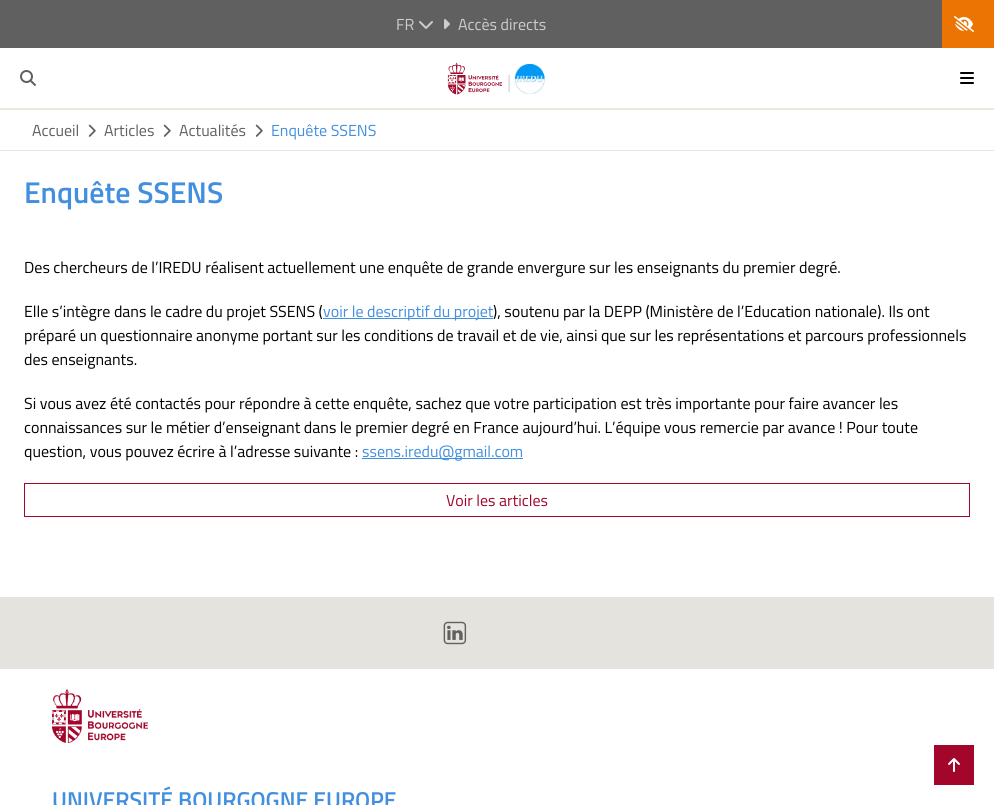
import math
import cairocffi as cairo

surface = cairo.ImageSurface(cairo.FORMAT_RGB24, 994, 805)
ctx = cairo.Context(surface)
options = cairo.FontOptions()
options.set_hint_metrics(cairo.HINT_METRICS_OFF)
options.set_hint_style(cairo.HINT_STYLE_NONE)
ctx.set_font_options(options)
ctx.set_miter_limit(4)


def rgb(r, g, b):
    ctx.set_source_rgb(r / 255, g / 255, b / 255)


def face(family, size, italic, bold):
    ctx.select_font_face(family, cairo.FONT_SLANT_ITALIC if italic else cairo.FONT_SLANT_NORMAL, cairo.FONT_WEIGHT_BOLD if bold else cairo.FONT_WEIGHT_NORMAL)
    ctx.set_font_size(size)


def label(x, y, s):
    ctx.move_to(x, y)
    ctx.show_text(s)


def rect(x, y, w, h):
    ctx.rectangle(x, y, w, h)
    ctx.fill()


def image(path, x, y, w, h):
    ctx.save()
    ctx.set_source_surface(cairo.ImageSurface.create_from_png(path), x, y)
    ctx.rectangle(x, y, w, h)
    ctx.fill()
    ctx.restore()


rgb(255, 255, 255)
ctx.paint()
rgb(96, 96, 96)
rect(0, 0, 942, 48)
face('Titillium Web', 16, 0, 0)
rgb(207, 203, 203)
label(396, 30, 'FR')
image('image0.png', 419, 21, 14, 8)
image('image1.png', 444, 19, 6, 10)
label(458, 30, 'Accès directs')
rgb(236, 116, 2)
rect(942, 0, 52, 48)
image('image2.png', 954, 16, 20, 16)
rgb(233, 232, 224)
rect(0, 108, 994, 2)
image('image3.png', 20, 70, 16, 16)
image('image4.png', 447, 62, 98, 33)
image('image5.png', 960, 72, 14, 12)
rect(0, 150, 994, 1)
rgb(96, 96, 96)
label(32, 136, 'Accueil')
image('image6.png', 88, 124, 8, 13)
label(104, 136, 'Articles')
image('image6.png', 163, 124, 8, 13)
label(179, 136, 'Actualités')
image('image6.png', 255, 124, 8, 13)
rgb(65, 143, 222)
label(271, 136, 'Enquête SSENS')
face('Titillium Web SemiBold', 30, 0, 0)
label(24, 203, 'Enquête SSENS')
face('Titillium Web', 16, 0, 0)
rgb(0, 0, 0)
label(24, 273, 'Des chercheurs de l’IREDU réalisent actuellement une enquête de grande envergure sur les enseignants du premier degré.')
label(24, 317, 'Elle s’intègre dans le cadre du projet SSENS (')
rgb(65, 143, 222)
rect(323, 318, 170, 1)
label(323, 317, 'voir le descriptif du projet')
rgb(0, 0, 0)
label(493, 317, '), soutenu par la DEPP (Ministère de l’Education nationale). Ils ont')
label(24, 341, 'préparé un questionnaire anonyme portant sur les conditions de travail et de vie, ainsi que sur les représentations et parcours professionnels')
label(24, 365, 'des enseignants.')
label(24, 409, 'Si vous avez été contactés pour répondre à cette enquête, sachez que votre participation est très importante pour faire avancer les')
label(24, 433, 'connaissances sur le métier d’enseignant dans le premier degré en France aujourd’hui. L’équipe vous remercie par avance ! Pour toute')
label(24, 457, 'question, vous pouvez écrire à l’adresse suivante :')
rgb(65, 143, 222)
rect(362, 458, 161, 1)
label(362, 457, 'ssens.iredu@gmail.com')
ctx.rectangle(24.5, 483.5, 945, 33)
rgb(163, 6, 43)
ctx.set_line_width(1)
ctx.stroke()
label(446, 506, 'Voir les articles')
rect(934, 745, 40, 40)
image('image7.png', 948, 758, 12, 14)
rgb(228, 227, 222)
rect(0, 597, 994, 72)
image('image8.png', 443, 621, 24, 24)
image('image9.png', 52, 689, 96, 54)
face('Titillium Web SemiBold', 23, 0, 0)
rgb(65, 143, 222)
label(52, 808, 'UNIVERSITÉ BOURGOGNE EUROPE')
surface.write_to_png('render.png')
